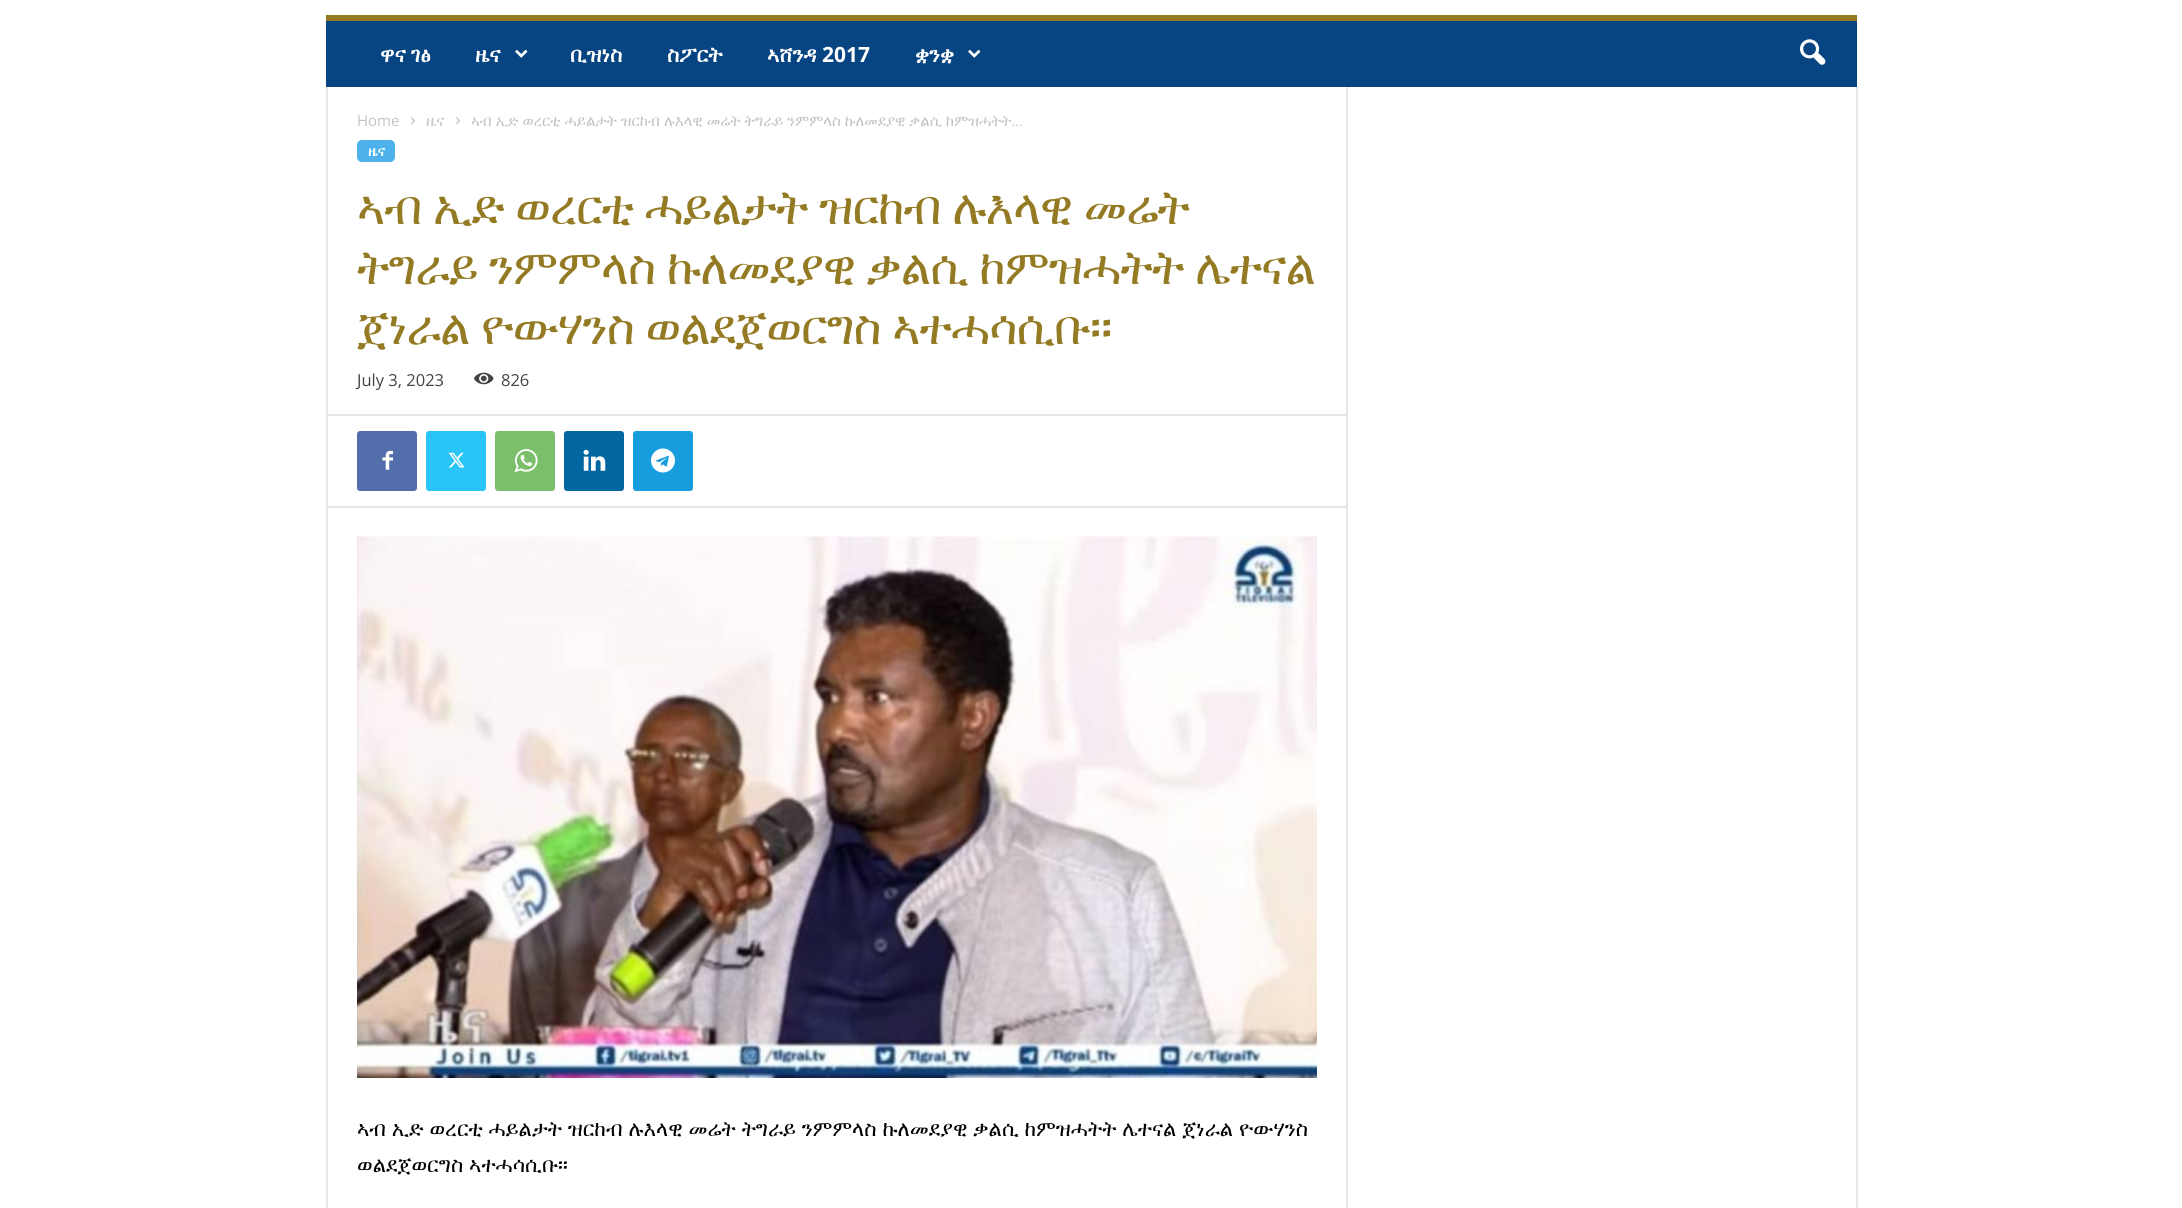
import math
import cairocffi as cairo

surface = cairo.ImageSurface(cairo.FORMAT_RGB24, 2182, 1208)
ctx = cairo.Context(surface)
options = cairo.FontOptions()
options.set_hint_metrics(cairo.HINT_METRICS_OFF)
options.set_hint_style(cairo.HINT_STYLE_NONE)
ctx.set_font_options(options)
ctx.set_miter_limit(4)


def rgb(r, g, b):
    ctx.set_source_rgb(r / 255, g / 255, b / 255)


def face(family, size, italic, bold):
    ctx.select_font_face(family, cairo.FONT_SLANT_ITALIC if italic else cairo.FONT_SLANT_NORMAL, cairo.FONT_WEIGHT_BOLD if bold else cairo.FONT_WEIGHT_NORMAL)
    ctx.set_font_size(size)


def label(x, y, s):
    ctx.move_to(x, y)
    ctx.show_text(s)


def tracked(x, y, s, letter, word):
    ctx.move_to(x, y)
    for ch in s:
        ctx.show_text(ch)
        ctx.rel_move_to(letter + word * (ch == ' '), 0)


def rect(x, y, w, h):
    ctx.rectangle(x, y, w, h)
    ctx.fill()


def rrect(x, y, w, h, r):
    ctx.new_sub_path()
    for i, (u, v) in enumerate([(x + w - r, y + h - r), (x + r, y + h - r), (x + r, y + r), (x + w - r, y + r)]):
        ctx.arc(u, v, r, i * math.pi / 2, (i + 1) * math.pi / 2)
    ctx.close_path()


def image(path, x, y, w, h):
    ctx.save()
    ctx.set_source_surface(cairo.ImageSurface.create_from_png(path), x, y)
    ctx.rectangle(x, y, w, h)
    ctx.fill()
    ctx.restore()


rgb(255, 255, 255)
ctx.paint()
rgb(6, 68, 130)
rect(326, 21, 1531, 66)
rgb(147, 122, 35)
rect(326, 15, 1531, 6)
face('FreeSerif', 21, 0, 1)
rgb(255, 255, 255)
label(380, 62, 'ዋና ገፅ')
label(475, 62, 'ዜና')
image('image0.png', 515, 49, 13, 9)
label(570, 62, 'ቢዝነስ')
label(667, 62, 'ስፖርት')
label(767, 62, 'ኣሸንዳ')
face('Open Sans', 21, 0, 1)
label(822, 62, '2017')
face('FreeSerif', 21, 0, 1)
label(915, 62, 'ቋንቋ')
image('image0.png', 968, 49, 13, 9)
image('image1.png', 1800, 39, 26, 26)
rgb(230, 230, 230)
rect(326, 87, 2, 1121)
face('Open Sans', 15, 0, 0)
rgb(195, 195, 195)
label(357, 126, 'Home')
image('image2.png', 411, 117, 4, 8)
face('FreeSerif', 15, 0, 0)
label(426, 126, 'ዜና')
image('image2.png', 456, 117, 4, 8)
tracked(471, 126, 'ኣብ ኢድ ወረርቲ ሓይልታት ዝርከብ ሉእላዊ መሬት ትግራይ ንምምላስ ኩለመደያዊ ቃልሲ ከምዝሓትት...', 0, 0.25)
rgb(77, 178, 236)
rrect(357, 140, 38, 22, 5)
ctx.fill()
face('FreeSerif', 14, 0, 1)
rgb(255, 255, 255)
label(368, 156, 'ዜና')
face('FreeSerif', 48, 0, 0)
rgb(147, 122, 35)
tracked(357, 224, 'ኣብ ኢድ ወረርቲ ሓይልታት ዝርከብ ሉእላዊ መሬት', -0.95, 0.5)
tracked(357, 284, 'ትግራይ ንምምላስ ኩለመደያዊ ቃልሲ ከምዝሓትት ሌተናል', -0.95, 0.5)
tracked(357, 344, 'ጀነራል ዮውሃንስ ወልደጀወርግስ ኣተሓሳሲቡ።', -0.95, 0.5)
face('Open Sans', 16.5, 0, 0)
rgb(68, 68, 68)
label(357, 386, 'July 3, 2023')
image('image3.png', 474, 372, 20, 13)
label(501, 386, '826')
rgb(230, 230, 230)
rect(327, 414, 1019, 2)
rgb(81, 110, 171)
rrect(357, 431, 60, 60, 3)
ctx.fill()
image('image4.png', 382, 450, 11, 20)
rgb(41, 197, 246)
rrect(426, 431, 60, 60, 3)
ctx.fill()
image('image5.png', 448, 452, 17, 16)
rgb(123, 191, 106)
rrect(495, 431, 60, 60, 3)
ctx.fill()
image('image6.png', 514, 449, 24, 24)
rgb(2, 102, 160)
rrect(564, 431, 60, 60, 3)
ctx.fill()
image('image7.png', 583, 449, 23, 22)
rgb(23, 156, 222)
rrect(633, 431, 60, 60, 3)
ctx.fill()
image('image8.png', 651, 448, 24, 25)
rgb(230, 230, 230)
rect(327, 506, 1019, 2)
image('image9.png', 357, 536, 960, 542)
face('FreeSerif', 21, 0, 0)
rgb(0, 0, 0)
tracked(357, 1136, 'ኣብ ኢድ ወረርቲ ሓይልታት ዝርከብ ሉእላዊ መሬት ትግራይ ንምምላስ ኩለመደያዊ ቃልሲ ከምዝሓትት ሌተናል ጀነራል ዮውሃንስ', 0, 0.6)
tracked(357, 1172, 'ወልደጀወርግስ ኣተሓሳሲቡ።', 0, 0.6)
rgb(230, 230, 230)
rect(1346, 87, 2, 1121)
rect(1856, 87, 2, 1121)
surface.write_to_png('render.png')
